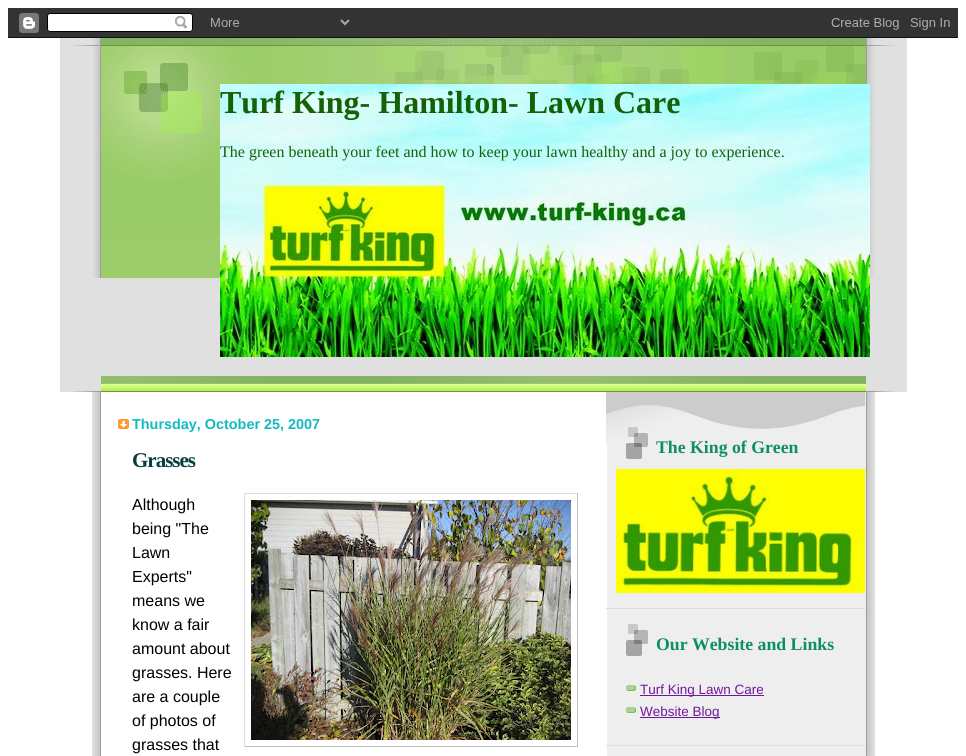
import math
import cairocffi as cairo

surface = cairo.ImageSurface(cairo.FORMAT_RGB24, 966, 756)
ctx = cairo.Context(surface)
options = cairo.FontOptions()
options.set_hint_metrics(cairo.HINT_METRICS_OFF)
options.set_hint_style(cairo.HINT_STYLE_NONE)
ctx.set_font_options(options)
ctx.set_miter_limit(4)


def rgb(r, g, b):
    ctx.set_source_rgb(r / 255, g / 255, b / 255)


def face(family, size, italic, bold):
    ctx.select_font_face(family, cairo.FONT_SLANT_ITALIC if italic else cairo.FONT_SLANT_NORMAL, cairo.FONT_WEIGHT_BOLD if bold else cairo.FONT_WEIGHT_NORMAL)
    ctx.set_font_size(size)


def label(x, y, s):
    ctx.move_to(x, y)
    ctx.show_text(s)


def tracked(x, y, s, letter, word):
    ctx.move_to(x, y)
    for ch in s:
        ctx.show_text(ch)
        ctx.rel_move_to(letter + word * (ch == ' '), 0)


def rect(x, y, w, h):
    ctx.rectangle(x, y, w, h)
    ctx.fill()


def image(path, x, y, w, h):
    ctx.save()
    ctx.set_source_surface(cairo.ImageSurface.create_from_png(path), x, y)
    ctx.rectangle(x, y, w, h)
    ctx.fill()
    ctx.restore()


rgb(255, 255, 255)
ctx.paint()
image('image0.png', 8, 8, 950, 30)
image('image1.png', 92, 392, 783, 364)
rgb(224, 224, 224)
rect(60, 38, 847, 354)
image('image2.png', 71, 38, 825, 240)
image('image3.png', 71, 376, 825, 16)
image('image4.png', 220, 84, 650, 273)
face('Liberation Serif', 32, 0, 1)
rgb(20, 97, 8)
label(220, 113, 'Turf King- Hamilton- Lawn Care')
face('Liberation Serif', 16, 0, 0)
label(220, 157, 'The green beneath your feet and how to keep your lawn healthy and a joy to experience.')
image('image5.png', 118, 419, 11, 10)
face('Liberation Sans', 14.4, 0, 1)
rgb(18, 187, 191)
label(132, 429, 'Thursday, October 25, 2007')
face('Liberation Serif', 21, 0, 1)
rgb(6, 62, 63)
tracked(132, 467, 'Grasses', -1, 0)
face('Liberation Sans', 16, 0, 0)
rgb(0, 0, 0)
label(132, 510, 'Although')
rgb(221, 221, 221)
rect(244, 493, 334, 1)
rgb(192, 192, 192)
rect(577, 493, 1, 254)
rect(244, 746, 334, 1)
rgb(221, 221, 221)
rect(244, 493, 1, 254)
image('image6.png', 251, 500, 320, 240)
rgb(0, 0, 0)
label(132, 534, 'being "The')
label(132, 558, 'Lawn')
label(132, 582, 'Experts"')
label(132, 606, 'means we')
label(132, 630, 'know a fair')
label(132, 654, 'amount about')
label(132, 678, 'grasses. Here')
label(132, 702, 'are a couple')
label(132, 726, 'of photos of')
label(132, 750, 'grasses that')
image('image7.png', 606, 392, 259, 51)
rgb(221, 221, 221)
rect(606, 608, 259, 1)
image('image8.png', 626, 427, 22, 32)
face('Liberation Serif', 17.75, 0, 1)
rgb(13, 143, 99)
label(656, 453, 'The King of Green')
image('image9.png', 616, 469, 249, 124)
rgb(221, 221, 221)
rect(606, 745, 259, 1)
image('image10.png', 626, 624, 22, 32)
rgb(13, 143, 99)
label(656, 650, 'Our Website and Links')
image('image11.png', 626, 685, 10, 6)
rgb(114, 23, 157)
rect(640, 695, 124, 1)
face('Liberation Sans', 13.5, 0, 0)
label(640, 694, 'Turf King Lawn Care')
image('image11.png', 626, 707, 10, 6)
rect(640, 717, 80, 1)
label(640, 716, 'Website Blog')
surface.write_to_png('render.png')
